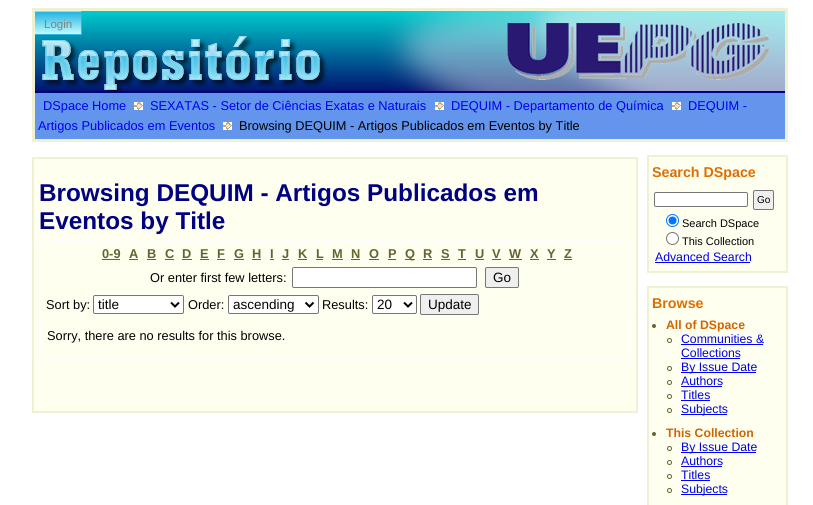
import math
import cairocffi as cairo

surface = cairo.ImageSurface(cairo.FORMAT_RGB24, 813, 505)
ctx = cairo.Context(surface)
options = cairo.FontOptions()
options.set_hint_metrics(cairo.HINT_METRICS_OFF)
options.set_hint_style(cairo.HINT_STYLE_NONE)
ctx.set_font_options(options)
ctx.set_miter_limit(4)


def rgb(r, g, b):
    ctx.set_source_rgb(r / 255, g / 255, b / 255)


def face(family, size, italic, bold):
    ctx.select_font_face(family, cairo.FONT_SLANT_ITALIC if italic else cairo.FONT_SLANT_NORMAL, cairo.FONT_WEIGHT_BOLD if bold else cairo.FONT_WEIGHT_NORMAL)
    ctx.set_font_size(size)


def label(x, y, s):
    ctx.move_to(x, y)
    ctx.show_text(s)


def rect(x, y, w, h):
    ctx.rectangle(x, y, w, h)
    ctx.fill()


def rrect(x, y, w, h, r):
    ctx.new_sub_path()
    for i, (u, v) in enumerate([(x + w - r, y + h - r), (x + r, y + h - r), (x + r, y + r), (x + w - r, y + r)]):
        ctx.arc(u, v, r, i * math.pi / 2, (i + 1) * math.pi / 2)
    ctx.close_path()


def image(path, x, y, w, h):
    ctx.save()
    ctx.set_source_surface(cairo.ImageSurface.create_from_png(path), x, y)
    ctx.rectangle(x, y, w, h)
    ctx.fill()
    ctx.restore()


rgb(255, 255, 255)
ctx.paint()
ctx.rectangle(33.5, 9.5, 753, 131)
rgb(240, 240, 210)
ctx.set_line_width(3)
ctx.stroke()
image('image0.png', 35, 11, 750, 80)
face('Liberation Sans', 11.5, 0, 0)
rgb(128, 128, 128)
label(44, 28, 'Login')
rgb(100, 149, 237)
rect(35, 93, 750, 46)
rgb(0, 0, 128)
rect(35, 91, 750, 2)
face('Liberation Sans', 12.8, 0, 0)
rgb(0, 0, 238)
label(43, 110, 'DSpace Home')
image('image1.png', 134, 102, 9, 8)
label(150, 110, 'SEXATAS - Setor de Ciências Exatas e Naturais')
image('image1.png', 435, 102, 9, 8)
label(451, 110, 'DEQUIM - Departamento de Química')
image('image1.png', 672, 102, 9, 8)
label(688, 110, 'DEQUIM -')
label(38, 130, 'Artigos Publicados em Eventos')
image('image1.png', 223, 122, 9, 8)
rgb(0, 0, 0)
label(239, 130, 'Browsing DEQUIM - Artigos Publicados em Eventos by Title')
rgb(255, 255, 240)
ctx.rectangle(33, 158, 604, 254)
ctx.fill_preserve()
rgb(240, 240, 210)
ctx.set_line_width(2)
ctx.stroke()
face('Liberation Sans', 24.3, 0, 1)
rgb(0, 0, 128)
label(39, 201, 'Browsing DEQUIM - Artigos Publicados em')
label(39, 229, 'Eventos by Title')
ctx.rectangle(39.5, 240.5, 591, 120)
rgb(255, 255, 255)
ctx.set_line_width(1)
ctx.stroke()
face('Liberation Sans', 12.8, 0, 1)
rgb(100, 100, 50)
label(102, 258, '0-9')
rect(102, 259, 18, 1)
label(129, 258, 'A')
rect(129, 259, 9, 1)
label(147, 258, 'B')
rect(147, 259, 9, 1)
label(165, 258, 'C')
rect(165, 259, 9, 1)
label(182, 258, 'D')
rect(182, 259, 10, 1)
label(200, 258, 'E')
rect(200, 259, 9, 1)
label(217, 258, 'F')
rect(217, 259, 8, 1)
label(234, 258, 'G')
rect(234, 259, 10, 1)
label(252, 258, 'H')
rect(252, 259, 9, 1)
label(270, 258, 'I')
rect(270, 259, 4, 1)
label(282, 258, 'J')
rect(282, 259, 7, 1)
label(298, 258, 'K')
rect(298, 259, 9, 1)
label(316, 258, 'L')
rect(316, 259, 7, 1)
label(332, 258, 'M')
rect(332, 259, 11, 1)
label(351, 258, 'N')
rect(351, 259, 9, 1)
label(369, 258, 'O')
rect(369, 259, 10, 1)
label(388, 258, 'P')
rect(388, 259, 8, 1)
rect(405, 259, 10, 1)
label(405, 258, 'Q')
label(423, 258, 'R')
rect(423, 259, 9, 1)
label(441, 258, 'S')
rect(441, 259, 9, 1)
label(458, 258, 'T')
rect(458, 259, 8, 1)
label(475, 258, 'U')
rect(475, 259, 9, 1)
label(492, 258, 'V')
rect(492, 259, 9, 1)
label(509, 258, 'W')
rect(509, 259, 13, 1)
label(530, 258, 'X')
rect(530, 259, 9, 1)
label(547, 258, 'Y')
rect(547, 259, 9, 1)
label(564, 258, 'Z')
rect(564, 259, 8, 1)
face('Liberation Sans', 12.8, 0, 0)
rgb(0, 0, 0)
label(150, 282, 'Or enter first few letters:')
rgb(255, 255, 255)
rrect(292.5, 267.5, 184, 20, 1.5)
ctx.fill_preserve()
rgb(118, 118, 118)
ctx.stroke()
rgb(239, 239, 239)
rrect(485.5, 267.5, 33, 20, 1.5)
ctx.fill_preserve()
rgb(118, 118, 118)
ctx.stroke()
face('Liberation Sans', 13.5, 0, 0)
rgb(0, 0, 0)
label(493, 282, 'Go')
face('Liberation Sans', 12.8, 0, 0)
label(46, 309, 'Sort by:')
rgb(255, 255, 255)
rrect(93.5, 295.5, 90, 18, 1.5)
ctx.fill_preserve()
rgb(118, 118, 118)
ctx.stroke()
ctx.new_path()
ctx.move_to(171, 302.5)
ctx.line_to(175, 306.5)
ctx.line_to(179, 302.5)
rgb(0, 0, 0)
ctx.set_line_width(2)
ctx.stroke()
face('Liberation Sans', 13.5, 0, 0)
label(98, 309, 'title')
face('Liberation Sans', 12.8, 0, 0)
label(188, 309, 'Order:')
rgb(255, 255, 255)
rrect(228.5, 295.5, 90, 18, 1.5)
ctx.fill_preserve()
rgb(118, 118, 118)
ctx.set_line_width(1)
ctx.stroke()
ctx.new_path()
ctx.move_to(305.5, 302.5)
ctx.line_to(309.5, 306.5)
ctx.line_to(313.5, 302.5)
rgb(0, 0, 0)
ctx.set_line_width(2)
ctx.stroke()
face('Liberation Sans', 13.5, 0, 0)
label(233, 309, 'ascending')
face('Liberation Sans', 12.8, 0, 0)
label(322, 309, 'Results:')
rgb(255, 255, 255)
rrect(372.5, 295.5, 44, 18, 1.5)
ctx.fill_preserve()
rgb(118, 118, 118)
ctx.set_line_width(1)
ctx.stroke()
ctx.new_path()
ctx.move_to(404, 302.5)
ctx.line_to(408, 306.5)
ctx.line_to(412, 302.5)
rgb(0, 0, 0)
ctx.set_line_width(2)
ctx.stroke()
face('Liberation Sans', 13.5, 0, 0)
label(377, 309, '20')
rgb(239, 239, 239)
rrect(420.5, 294.5, 58, 20, 1.5)
ctx.fill_preserve()
rgb(118, 118, 118)
ctx.set_line_width(1)
ctx.stroke()
rgb(0, 0, 0)
label(428, 309, 'Update')
ctx.rectangle(40.5, 321.5, 589, 28)
rgb(255, 255, 255)
ctx.stroke()
face('Liberation Sans', 12.8, 0, 0)
rgb(0, 0, 0)
label(47, 340, 'Sorry, there are no results for this browse.')
rgb(255, 255, 240)
ctx.rectangle(648, 156, 139, 116)
ctx.fill_preserve()
rgb(240, 240, 210)
ctx.set_line_width(2)
ctx.stroke()
face('Liberation Sans', 14.25, 0, 1)
rgb(223, 110, 0)
label(652, 177, 'Search DSpace')
rgb(255, 255, 255)
rrect(654.5, 192.5, 93, 14, 1.5)
ctx.fill_preserve()
rgb(118, 118, 118)
ctx.set_line_width(1)
ctx.stroke()
rgb(239, 239, 239)
rrect(753.5, 190.5, 20, 19, 1.5)
ctx.fill_preserve()
rgb(118, 118, 118)
ctx.stroke()
face('Liberation Sans', 10, 0, 0)
rgb(0, 0, 0)
label(757, 203, 'Go')
rgb(255, 255, 255)
ctx.new_path()
ctx.arc(672.5, 220.5, 6, 0, 2 * math.pi)
ctx.fill_preserve()
rgb(0, 117, 255)
ctx.stroke()
ctx.arc(672.5, 220.5, 4, 0, 2 * math.pi)
ctx.fill()
face('Liberation Sans', 11, 0, 0)
rgb(0, 0, 0)
label(682, 227, 'Search DSpace')
rgb(255, 255, 255)
ctx.new_path()
ctx.arc(672.5, 238.5, 6, 0, 2 * math.pi)
ctx.fill_preserve()
rgb(118, 118, 118)
ctx.stroke()
rgb(0, 0, 0)
label(682, 245, 'This Collection')
face('Liberation Sans', 12.25, 0, 0)
rgb(0, 0, 238)
label(655, 261, 'Advanced Search')
rect(655, 262, 95, 1)
rgb(255, 255, 240)
ctx.rectangle(648, 287, 139, 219)
ctx.fill_preserve()
rgb(240, 240, 210)
ctx.set_line_width(2)
ctx.stroke()
face('Liberation Sans', 14.25, 0, 1)
rgb(223, 110, 0)
label(652, 308, 'Browse')
rgb(100, 100, 50)
ctx.new_path()
ctx.arc(654, 326, 2, 0, 2 * math.pi)
ctx.fill()
face('Liberation Sans', 12.25, 0, 1)
rgb(210, 100, 0)
label(666, 329, 'All of DSpace')
ctx.new_path()
ctx.arc(669.5, 340.5, 2, 0, 2 * math.pi)
rgb(100, 100, 50)
ctx.set_line_width(1)
ctx.stroke()
face('Liberation Sans', 12.25, 0, 0)
rgb(0, 0, 238)
label(681, 343, 'Communities &')
rect(681, 344, 82, 1)
label(681, 357, 'Collections')
rect(681, 358, 59, 1)
ctx.new_path()
ctx.arc(669.5, 368.5, 2, 0, 2 * math.pi)
rgb(100, 100, 50)
ctx.stroke()
rgb(0, 0, 238)
rect(681, 372, 75, 1)
label(681, 371, 'By Issue Date')
ctx.new_path()
ctx.arc(669.5, 382.5, 2, 0, 2 * math.pi)
rgb(100, 100, 50)
ctx.stroke()
rgb(0, 0, 238)
label(681, 385, 'Authors')
rect(681, 386, 41, 1)
ctx.new_path()
ctx.arc(669.5, 396.5, 2, 0, 2 * math.pi)
rgb(100, 100, 50)
ctx.stroke()
rgb(0, 0, 238)
label(681, 399, 'Titles')
rect(681, 400, 29, 1)
ctx.new_path()
ctx.arc(669.5, 410.5, 2, 0, 2 * math.pi)
rgb(100, 100, 50)
ctx.stroke()
rgb(0, 0, 238)
rect(681, 414, 46, 1)
label(681, 413, 'Subjects')
rgb(100, 100, 50)
ctx.new_path()
ctx.arc(654, 434, 2, 0, 2 * math.pi)
ctx.fill()
face('Liberation Sans', 12.25, 0, 1)
rgb(210, 100, 0)
label(666, 437, 'This Collection')
ctx.new_path()
ctx.arc(669.5, 448.5, 2, 0, 2 * math.pi)
rgb(100, 100, 50)
ctx.stroke()
rgb(0, 0, 238)
rect(681, 452, 75, 1)
face('Liberation Sans', 12.25, 0, 0)
label(681, 451, 'By Issue Date')
ctx.new_path()
ctx.arc(669.5, 462.5, 2, 0, 2 * math.pi)
rgb(100, 100, 50)
ctx.stroke()
rgb(0, 0, 238)
label(681, 465, 'Authors')
rect(681, 466, 41, 1)
ctx.new_path()
ctx.arc(669.5, 476.5, 2, 0, 2 * math.pi)
rgb(100, 100, 50)
ctx.stroke()
rgb(0, 0, 238)
label(681, 479, 'Titles')
rect(681, 480, 29, 1)
ctx.new_path()
ctx.arc(669.5, 490.5, 2, 0, 2 * math.pi)
rgb(100, 100, 50)
ctx.stroke()
rgb(0, 0, 238)
rect(681, 494, 46, 1)
label(681, 493, 'Subjects')
surface.write_to_png('render.png')
